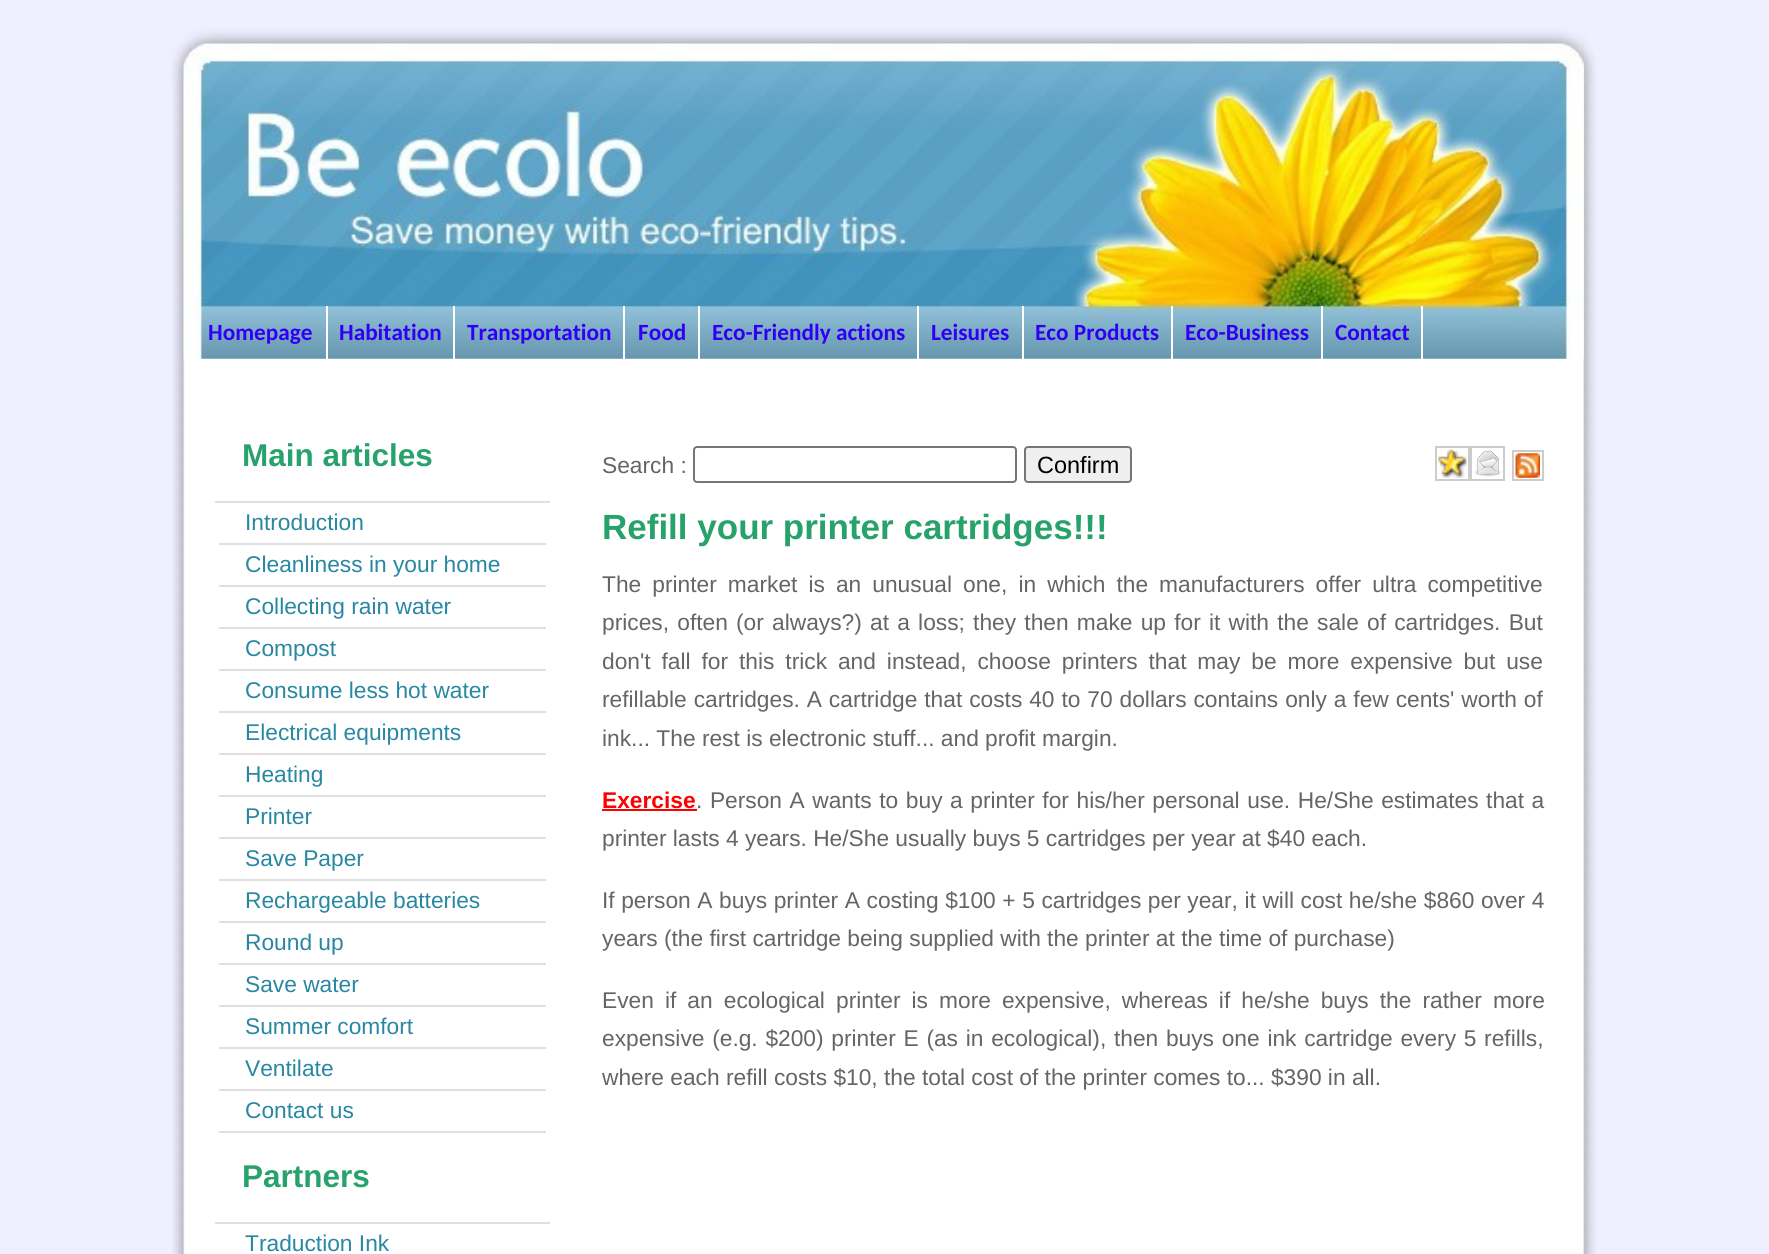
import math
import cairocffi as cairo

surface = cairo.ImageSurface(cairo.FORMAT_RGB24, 1769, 1254)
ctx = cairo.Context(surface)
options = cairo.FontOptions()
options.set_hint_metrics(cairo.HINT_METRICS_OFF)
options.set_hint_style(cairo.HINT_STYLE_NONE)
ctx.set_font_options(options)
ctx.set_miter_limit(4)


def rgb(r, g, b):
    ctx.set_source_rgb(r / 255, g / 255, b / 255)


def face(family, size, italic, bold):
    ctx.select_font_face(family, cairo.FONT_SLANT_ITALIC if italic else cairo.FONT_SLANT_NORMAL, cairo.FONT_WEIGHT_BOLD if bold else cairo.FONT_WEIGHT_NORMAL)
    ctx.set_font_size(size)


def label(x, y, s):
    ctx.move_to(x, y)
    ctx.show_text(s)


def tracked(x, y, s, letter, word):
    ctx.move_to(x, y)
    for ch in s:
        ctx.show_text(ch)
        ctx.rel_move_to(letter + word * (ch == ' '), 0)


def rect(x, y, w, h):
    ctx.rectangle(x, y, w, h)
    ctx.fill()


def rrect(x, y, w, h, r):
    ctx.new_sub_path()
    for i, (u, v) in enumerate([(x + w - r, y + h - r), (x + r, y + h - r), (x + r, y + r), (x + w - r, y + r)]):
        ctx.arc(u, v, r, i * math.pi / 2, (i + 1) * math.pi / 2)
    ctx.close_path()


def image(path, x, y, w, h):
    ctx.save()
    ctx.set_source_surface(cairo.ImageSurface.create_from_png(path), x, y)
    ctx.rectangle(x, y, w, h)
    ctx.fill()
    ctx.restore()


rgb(240, 239, 255)
ctx.paint()
image('image0.png', 172, 84, 1424, 1170)
image('image1.png', 171, 0, 1425, 84)
image('image2.png', 183, 43, 1401, 316)
rgb(255, 255, 255)
rect(326, 306, 2, 53)
face('Carlito', 23.25, 0, 1)
rgb(49, 0, 244)
label(208, 340, 'Homepage')
rgb(255, 255, 255)
rect(453, 306, 2, 53)
rgb(49, 0, 244)
label(339, 340, 'Habitation')
rgb(255, 255, 255)
rect(623, 306, 2, 53)
rgb(49, 0, 244)
label(467, 340, 'Transportation')
rgb(255, 255, 255)
rect(698, 306, 2, 53)
rgb(49, 0, 244)
label(638, 340, 'Food')
rgb(255, 255, 255)
rect(917, 306, 2, 53)
rgb(49, 0, 244)
label(712, 340, 'Eco-Friendly actions')
rgb(255, 255, 255)
rect(1022, 306, 2, 53)
rgb(49, 0, 244)
label(931, 340, 'Leisures')
rgb(255, 255, 255)
rect(1171, 306, 2, 53)
rgb(49, 0, 244)
label(1035, 340, 'Eco Products')
rgb(255, 255, 255)
rect(1321, 306, 2, 53)
rgb(49, 0, 244)
label(1185, 340, 'Eco-Business')
rgb(255, 255, 255)
rect(1421, 306, 2, 53)
rgb(49, 0, 244)
label(1335, 340, 'Contact')
face('Liberation Sans', 31.5, 0, 1)
rgb(40, 162, 107)
label(242, 466, 'Main articles')
rgb(224, 224, 224)
rect(215, 501, 335, 2)
rect(219, 543, 327, 2)
face('Liberation Sans', 22.75, 0, 0)
rgb(40, 135, 162)
label(245, 530, 'Introduction')
rgb(224, 224, 224)
rect(219, 585, 327, 2)
rgb(40, 135, 162)
label(245, 572, 'Cleanliness in your home')
rgb(224, 224, 224)
rect(219, 627, 327, 2)
rgb(40, 135, 162)
label(245, 614, 'Collecting rain water')
rgb(224, 224, 224)
rect(219, 669, 327, 2)
rgb(40, 135, 162)
label(245, 656, 'Compost')
rgb(224, 224, 224)
rect(219, 711, 327, 2)
rgb(40, 135, 162)
label(245, 698, 'Consume less hot water')
rgb(224, 224, 224)
rect(219, 753, 327, 2)
rgb(40, 135, 162)
label(245, 740, 'Electrical equipments')
rgb(224, 224, 224)
rect(219, 795, 327, 2)
rgb(40, 135, 162)
label(245, 782, 'Heating')
rgb(224, 224, 224)
rect(219, 837, 327, 2)
rgb(40, 135, 162)
label(245, 824, 'Printer')
rgb(224, 224, 224)
rect(219, 879, 327, 2)
rgb(40, 135, 162)
label(245, 866, 'Save Paper')
rgb(224, 224, 224)
rect(219, 921, 327, 2)
rgb(40, 135, 162)
label(245, 908, 'Rechargeable batteries')
rgb(224, 224, 224)
rect(219, 963, 327, 2)
rgb(40, 135, 162)
label(245, 950, 'Round up')
rgb(224, 224, 224)
rect(219, 1005, 327, 2)
rgb(40, 135, 162)
label(245, 992, 'Save water')
rgb(224, 224, 224)
rect(219, 1047, 327, 2)
rgb(40, 135, 162)
label(245, 1034, 'Summer comfort')
rgb(224, 224, 224)
rect(219, 1089, 327, 2)
rgb(40, 135, 162)
label(245, 1076, 'Ventilate')
rgb(224, 224, 224)
rect(219, 1131, 327, 2)
rgb(40, 135, 162)
label(245, 1118, 'Contact us')
face('Liberation Sans', 31.5, 0, 1)
rgb(40, 162, 107)
label(242, 1187, 'Partners')
rgb(224, 224, 224)
rect(215, 1222, 335, 2)
face('Liberation Sans', 22.75, 0, 0)
rgb(40, 135, 162)
label(245, 1251, 'Traduction Ink')
rgb(101, 101, 101)
label(602, 473, 'Search :')
rrect(694, 447, 322, 35, 3)
rgb(118, 118, 118)
ctx.stroke()
rgb(239, 239, 239)
rrect(1025, 447, 106, 35, 3)
ctx.fill_preserve()
rgb(118, 118, 118)
ctx.stroke()
face('Liberation Sans', 23.5, 0, 0)
rgb(0, 0, 0)
label(1037, 473, 'Confirm')
ctx.rectangle(1436, 447, 33, 33)
rgb(204, 204, 204)
ctx.stroke()
ctx.rectangle(1471, 447, 33, 33)
ctx.stroke()
image('image3.png', 1438, 449, 29, 29)
image('image4.png', 1474, 451, 28, 26)
ctx.rectangle(1513, 451, 30, 29)
ctx.stroke()
image('image5.png', 1515, 453, 25, 25)
face('Liberation Sans', 35, 0, 1)
rgb(40, 162, 107)
label(602, 539, 'Refill your printer cartridges!!!')
face('Liberation Sans', 22.75, 0, 0)
rgb(101, 101, 101)
tracked(602, 592, 'The printer market is an unusual one, in which the manufacturers offer ultra competitive', 0, 4.75)
tracked(602, 630, 'prices, often (or always?) at a loss; they then make up for it with the sale of cartridges. But', 0, 1.9)
tracked(602, 669, 'don\'t fall for this trick and instead, choose printers that may be more expensive but use', 0, 4.6)
tracked(602, 707, 'refillable cartridges. A cartridge that costs 40 to 70 dollars contains only a few cents\' worth of', 0, 0.6)
label(602, 746, 'ink... The rest is electronic stuff... and profit margin.')
face('Liberation Sans', 22.75, 0, 1)
rgb(255, 0, 0)
label(602, 808, 'Exercise')
rect(602, 809, 95, 2)
face('Liberation Sans', 22.75, 0, 0)
rgb(101, 101, 101)
tracked(696, 808, '. Person A wants to buy a printer for his/her personal use. He/She estimates that a', 0, 1.25)
label(602, 846, 'printer lasts 4 years. He/She usually buys 5 cartridges per year at $40 each.')
tracked(602, 908, 'If person A buys printer A costing $100 + 5 cartridges per year, it will cost he/she $860 over 4', 0, 0.25)
label(602, 946, 'years (the first cartridge being supplied with the printer at the time of purchase)')
tracked(602, 1008, 'Even if an ecological printer is more expensive, whereas if he/she buys the rather more', 0, 4.75)
tracked(602, 1046, 'expensive (e.g. $200) printer E (as in ecological), then buys one ink cartridge every 5 refills,', 0, 1.4)
label(602, 1085, 'where each refill costs $10, the total cost of the printer comes to... $390 in all.')
surface.write_to_png('render.png')
